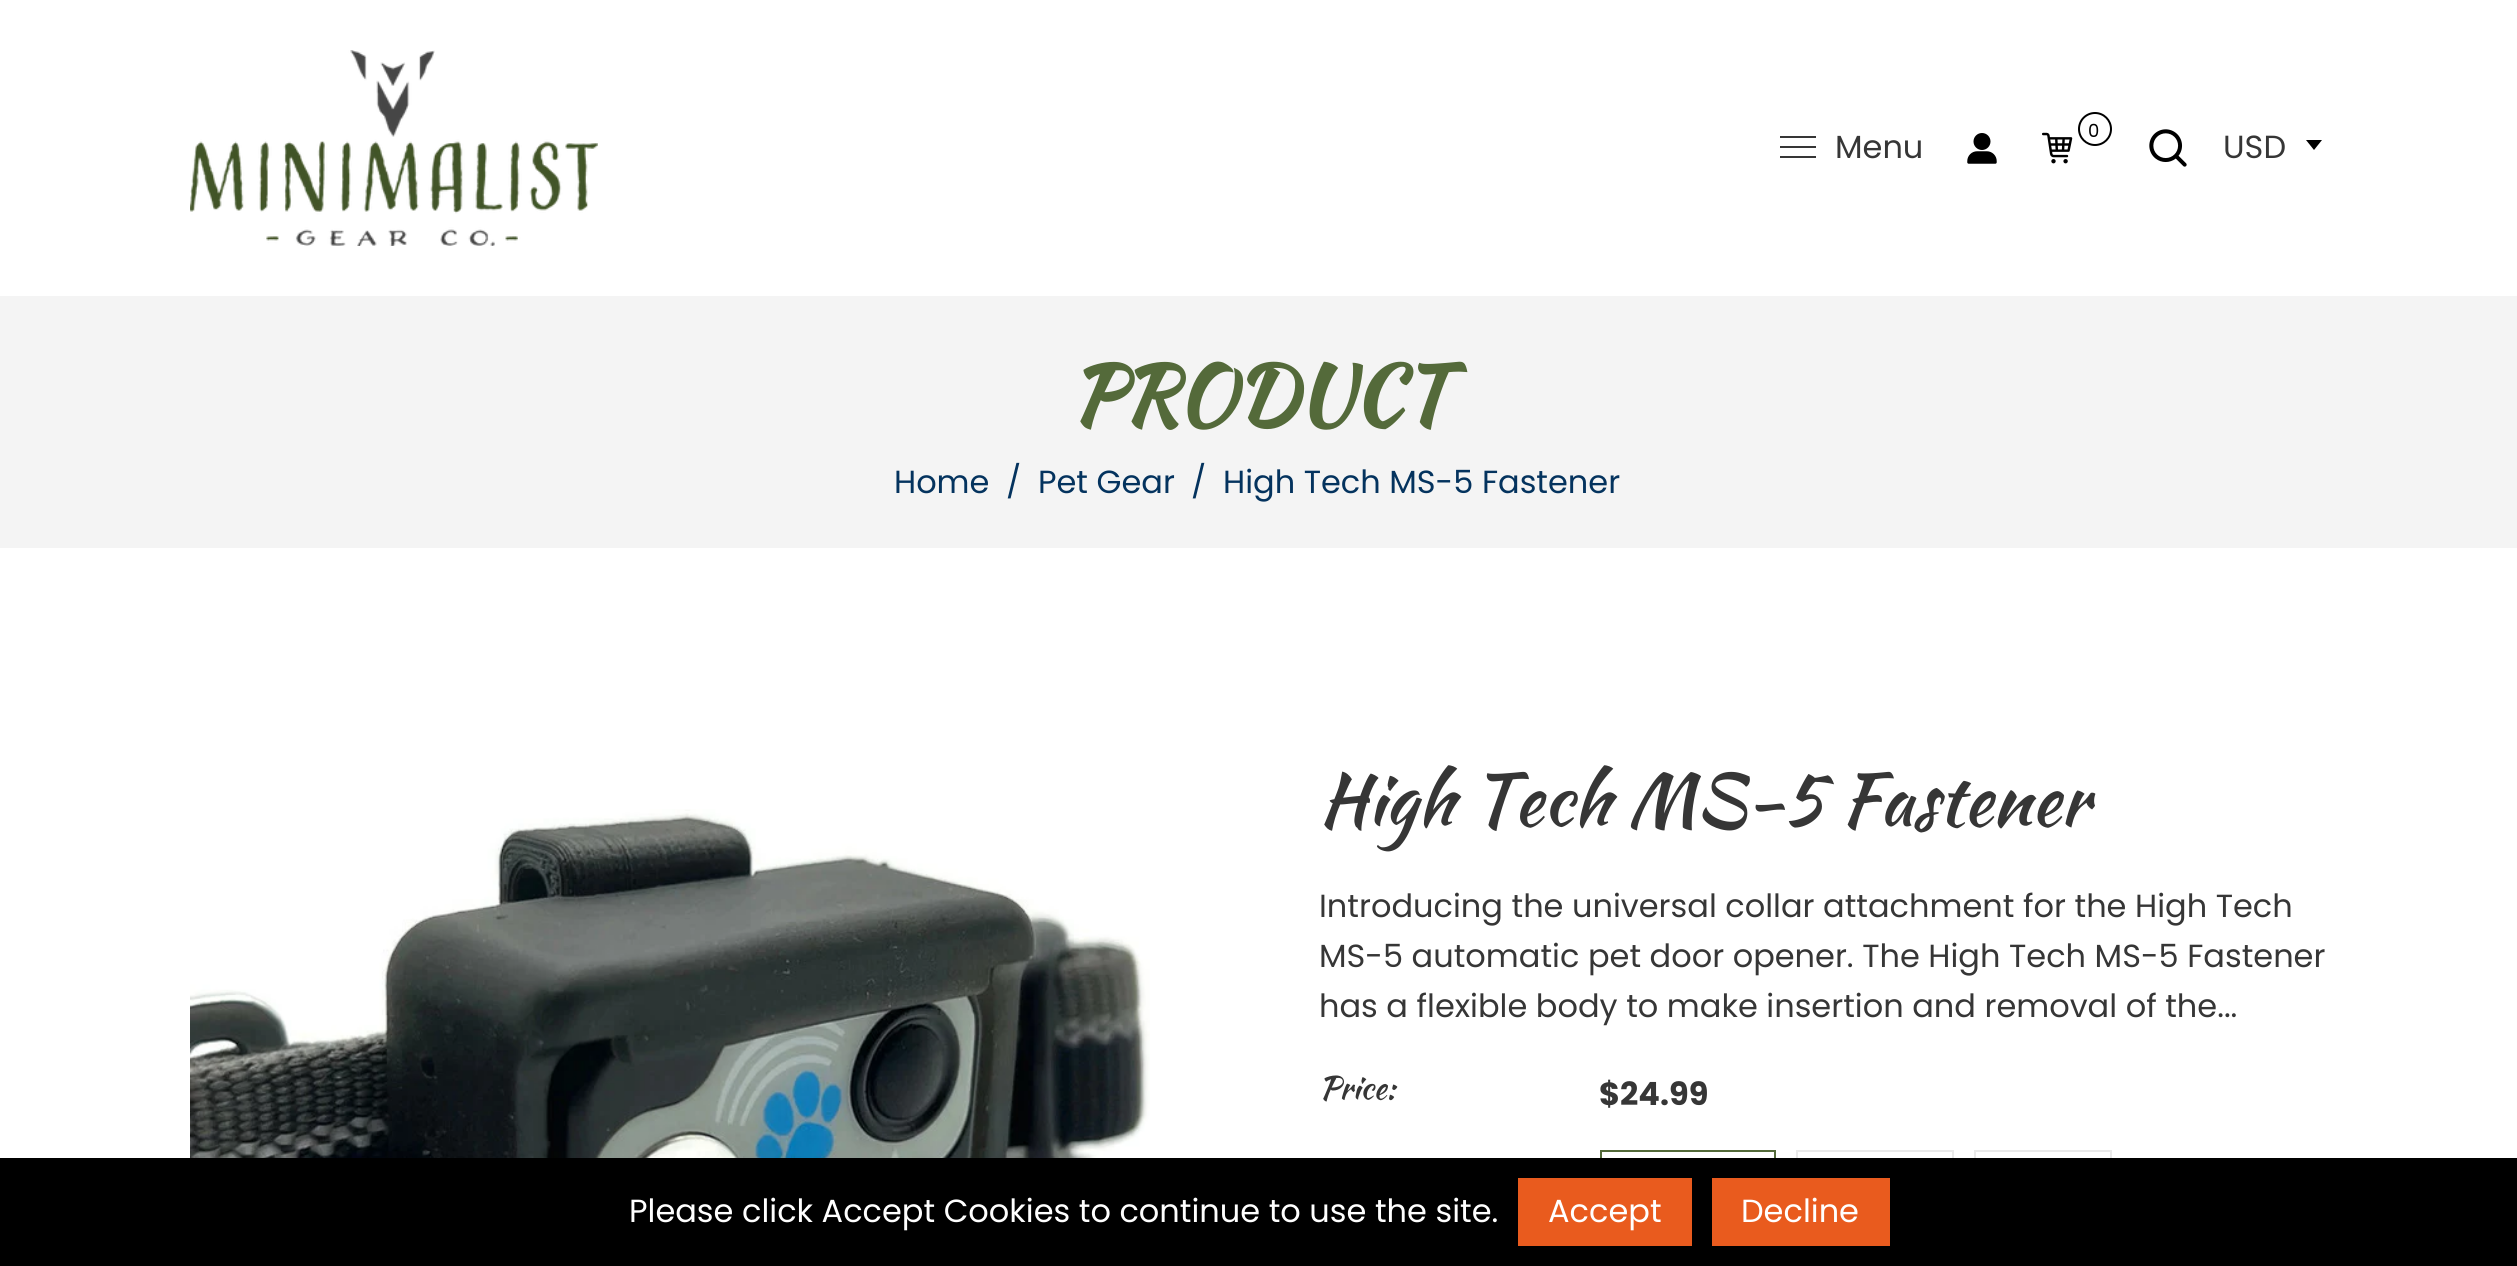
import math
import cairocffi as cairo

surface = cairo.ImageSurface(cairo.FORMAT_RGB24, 2517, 1266)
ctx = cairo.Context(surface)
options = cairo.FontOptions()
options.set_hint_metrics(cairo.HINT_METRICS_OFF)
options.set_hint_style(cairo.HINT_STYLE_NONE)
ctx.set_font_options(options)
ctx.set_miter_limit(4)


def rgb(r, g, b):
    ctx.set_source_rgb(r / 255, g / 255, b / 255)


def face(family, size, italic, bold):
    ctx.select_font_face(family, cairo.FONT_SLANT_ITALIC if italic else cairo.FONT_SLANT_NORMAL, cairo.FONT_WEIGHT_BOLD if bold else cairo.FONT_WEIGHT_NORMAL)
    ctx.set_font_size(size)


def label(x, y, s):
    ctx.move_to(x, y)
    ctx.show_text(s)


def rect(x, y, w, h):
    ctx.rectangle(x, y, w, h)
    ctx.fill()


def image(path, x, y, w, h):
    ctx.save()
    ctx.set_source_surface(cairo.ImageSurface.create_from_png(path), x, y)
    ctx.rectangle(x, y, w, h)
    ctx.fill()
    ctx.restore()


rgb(255, 255, 255)
ctx.paint()
image('image0.png', 190, 50, 408, 196)
rgb(54, 54, 54)
rect(1780, 146, 36, 2)
rect(1780, 136, 36, 2)
rect(1780, 156, 36, 2)
face('Poppins', 32, 0, 0)
label(1835, 158, 'Menu')
image('image1.png', 1967, 133, 30, 31)
ctx.arc(2095, 129, 16, 0, 2 * math.pi)
rgb(0, 0, 0)
ctx.stroke()
face('Poppins', 18, 0, 0)
label(2088, 137, '0')
image('image2.png', 2042, 132, 31, 32)
image('image3.png', 2149, 129, 38, 38)
face('Poppins', 32, 0, 0)
rgb(54, 54, 54)
label(2223, 158, 'USD')
rgb(0, 0, 0)
ctx.new_path()
ctx.move_to(2306, 140)
ctx.line_to(2322, 140)
ctx.line_to(2314, 150)
ctx.close_path()
ctx.fill()
rgb(244, 244, 244)
rect(0, 296, 2517, 252)
face('Kaushan Script', 80, 0, 1)
rgb(84, 106, 58)
label(1070, 423, 'PRODUCT')
face('Poppins', 32, 0, 0)
rgb(4, 51, 94)
label(894, 493, 'Home')
label(1006, 493, '/')
label(1038, 493, 'Pet Gear')
label(1191, 493, '/')
label(1223, 493, 'High Tech MS-5 Fastener')
image('image4.png', 190, 809, 960, 349)
face('Kaushan Script', 72, 0, 0)
rgb(54, 54, 54)
label(1319, 825, 'High Tech MS-5 Fastener')
face('Poppins', 32, 0, 0)
label(1319, 917, 'Introducing the universal collar attachment for the High Tech')
label(1319, 967, 'MS-5 automatic pet door opener. The High Tech MS-5 Fastener')
label(1319, 1017, 'has a flexible body to make insertion and removal of the...')
face('Kaushan Script', 32, 0, 0)
label(1319, 1099, 'Price:')
face('Poppins', 32, 0, 1)
label(1599, 1105, '$24.99')
ctx.rectangle(1601, 1151, 174, 62)
rgb(84, 106, 58)
ctx.stroke()
ctx.rectangle(1797, 1151, 156, 62)
rgb(233, 233, 233)
ctx.stroke()
ctx.rectangle(1975, 1151, 136, 62)
ctx.stroke()
rgb(0, 0, 0)
rect(0, 1158, 2517, 108)
face('Poppins', 32, 0, 0)
rgb(255, 255, 255)
label(629, 1222, 'Please click Accept Cookies to continue to use the site.')
rgb(233, 91, 30)
rect(1518, 1178, 174, 68)
rgb(255, 255, 255)
label(1548, 1222, 'Accept')
rgb(233, 91, 30)
rect(1712, 1178, 178, 68)
rgb(255, 255, 255)
label(1741, 1222, 'Decline')
surface.write_to_png('render.png')
